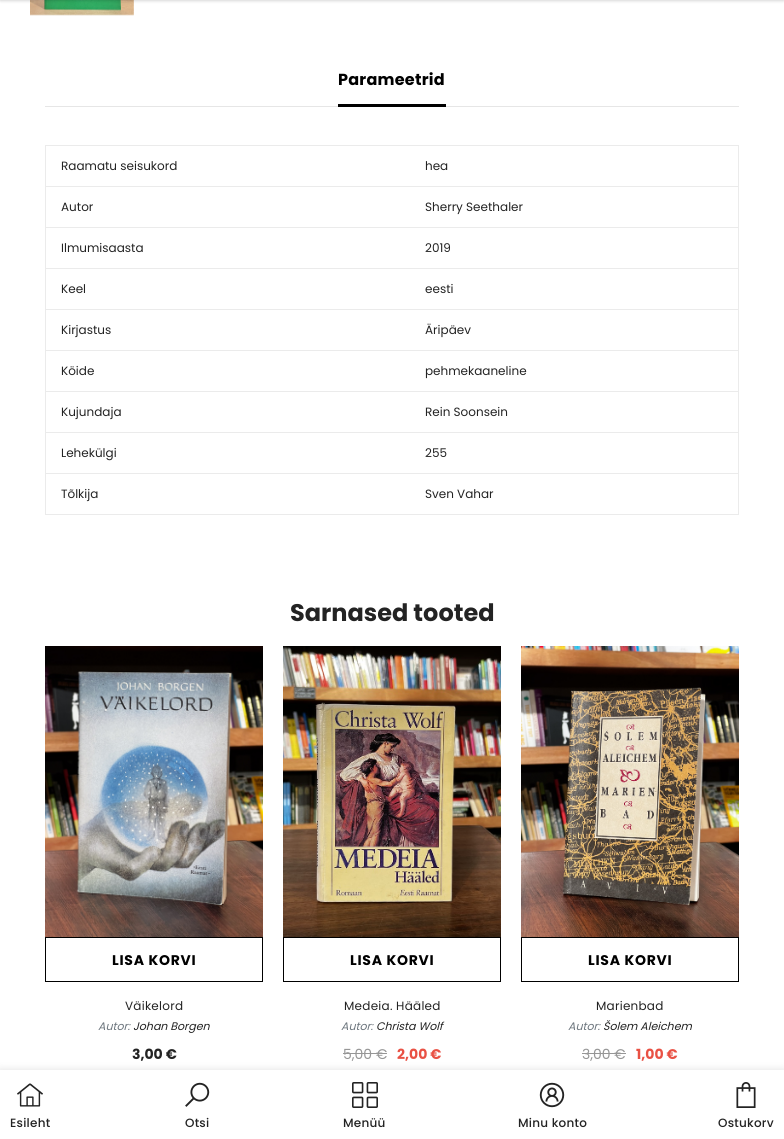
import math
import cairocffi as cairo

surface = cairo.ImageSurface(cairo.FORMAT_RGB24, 784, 1139)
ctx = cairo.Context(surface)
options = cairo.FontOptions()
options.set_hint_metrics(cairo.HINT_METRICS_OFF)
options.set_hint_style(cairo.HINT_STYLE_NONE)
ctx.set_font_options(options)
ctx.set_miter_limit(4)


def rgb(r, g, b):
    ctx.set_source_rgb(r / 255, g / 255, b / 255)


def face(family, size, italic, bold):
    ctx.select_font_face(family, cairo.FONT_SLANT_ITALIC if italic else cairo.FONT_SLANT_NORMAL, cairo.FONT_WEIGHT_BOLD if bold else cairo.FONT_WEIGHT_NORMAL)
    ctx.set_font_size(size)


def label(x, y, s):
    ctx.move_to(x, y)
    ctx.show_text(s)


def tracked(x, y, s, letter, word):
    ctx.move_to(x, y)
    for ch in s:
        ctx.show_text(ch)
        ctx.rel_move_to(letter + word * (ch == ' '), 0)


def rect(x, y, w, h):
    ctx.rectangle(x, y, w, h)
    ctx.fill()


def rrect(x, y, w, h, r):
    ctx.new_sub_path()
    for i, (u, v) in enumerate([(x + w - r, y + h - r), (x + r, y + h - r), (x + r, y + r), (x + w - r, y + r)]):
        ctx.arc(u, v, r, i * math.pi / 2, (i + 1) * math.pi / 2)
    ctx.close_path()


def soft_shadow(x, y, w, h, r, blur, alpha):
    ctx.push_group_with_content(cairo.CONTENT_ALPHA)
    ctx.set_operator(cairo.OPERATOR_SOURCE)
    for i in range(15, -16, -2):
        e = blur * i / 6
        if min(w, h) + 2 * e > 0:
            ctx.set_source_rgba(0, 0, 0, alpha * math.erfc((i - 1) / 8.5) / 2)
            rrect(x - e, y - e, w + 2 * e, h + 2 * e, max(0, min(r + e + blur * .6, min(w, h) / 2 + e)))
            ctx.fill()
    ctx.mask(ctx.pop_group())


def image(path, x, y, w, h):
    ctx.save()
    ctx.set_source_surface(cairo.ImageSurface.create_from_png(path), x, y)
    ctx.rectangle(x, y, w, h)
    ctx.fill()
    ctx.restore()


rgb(255, 255, 255)
ctx.paint()
image('image0.png', 30, 0, 104, 16)
rgb(0, 0, 0)
soft_shadow(0, -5, 784, 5, 0, 1.5, 0.12)
soft_shadow(0, -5, 784, 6, 0, 1.5, 0.1)
rgb(230, 230, 230)
rect(45, 106, 694, 1)
face('Poppins', 16, 0, 1)
rgb(0, 0, 0)
tracked(338, 85, 'Parameetrid', 0.25, 0)
rect(338, 104, 108, 3)
rgb(235, 235, 235)
rect(45, 145, 694, 1)
rect(738, 145, 1, 370)
rect(45, 514, 694, 1)
rect(45, 145, 1, 370)
face('Poppins', 12, 0, 0)
rgb(35, 35, 35)
label(61, 170, 'Raamatu seisukord')
rgb(235, 235, 235)
rect(45, 186, 694, 1)
rgb(35, 35, 35)
label(425, 170, 'hea')
label(61, 211, 'Autor')
rgb(235, 235, 235)
rect(45, 227, 694, 1)
rgb(35, 35, 35)
label(425, 211, 'Sherry Seethaler')
label(61, 252, 'Ilmumisaasta')
rgb(235, 235, 235)
rect(45, 268, 694, 1)
rgb(35, 35, 35)
label(425, 252, '2019')
label(61, 293, 'Keel')
rgb(235, 235, 235)
rect(45, 309, 694, 1)
rgb(35, 35, 35)
label(425, 293, 'eesti')
label(61, 334, 'Kirjastus')
rgb(235, 235, 235)
rect(45, 350, 694, 1)
rgb(35, 35, 35)
label(425, 334, 'Äripäev')
label(61, 375, 'Köide')
rgb(235, 235, 235)
rect(45, 391, 694, 1)
rgb(35, 35, 35)
label(425, 375, 'pehmekaaneline')
label(61, 416, 'Kujundaja')
rgb(235, 235, 235)
rect(45, 432, 694, 1)
rgb(35, 35, 35)
label(425, 416, 'Rein Soonsein')
label(61, 457, 'Lehekülgi')
rgb(235, 235, 235)
rect(45, 473, 694, 1)
rgb(35, 35, 35)
label(425, 457, '255')
label(61, 498, 'Tõlkija')
label(425, 498, 'Sven Vahar')
face('Poppins', 24, 0, 1)
label(290, 621, 'Sarnased tooted')
image('image1.png', 45, 646, 218, 291)
ctx.rectangle(45.5, 937.5, 217, 44)
rgb(0, 0, 0)
ctx.set_line_width(1)
ctx.stroke()
face('Poppins', 14, 0, 1)
tracked(112, 965, 'LISA KORVI', 0.75, 0)
face('Poppins', 12, 0, 0)
rgb(35, 35, 35)
tracked(125, 1010, 'Väikelord', 0.25, 0)
face('Poppins', 11, 1, 0)
rgb(108, 117, 125)
label(98, 1030, 'Autor:')
rgb(35, 35, 35)
label(133, 1030, 'Johan Borgen')
face('Poppins', 14, 0, 1)
label(132, 1059, '3,00 €')
image('image2.png', 283, 646, 218, 291)
ctx.rectangle(283.5, 937.5, 217, 44)
rgb(0, 0, 0)
ctx.stroke()
tracked(350, 965, 'LISA KORVI', 0.75, 0)
face('Poppins', 12, 0, 0)
rgb(35, 35, 35)
tracked(344, 1010, 'Medeia. Hääled', 0.25, 0)
face('Poppins', 11, 1, 0)
rgb(108, 117, 125)
label(341, 1030, 'Autor:')
rgb(35, 35, 35)
label(376, 1030, 'Christa Wolf')
face('Poppins', 14, 0, 0)
rgb(150, 150, 150)
label(343, 1059, '5,00 €')
rect(343, 1053, 44, 1)
face('Poppins', 14, 0, 1)
rgb(233, 81, 68)
label(397, 1059, '2,00 €')
image('image3.png', 521, 646, 218, 291)
ctx.rectangle(521.5, 937.5, 217, 44)
rgb(0, 0, 0)
ctx.stroke()
tracked(588, 965, 'LISA KORVI', 0.75, 0)
face('Poppins', 12, 0, 0)
rgb(35, 35, 35)
tracked(596, 1010, 'Marienbad', 0.25, 0)
face('Poppins', 11, 1, 0)
rgb(108, 117, 125)
label(568, 1030, 'Autor:')
rgb(35, 35, 35)
label(603, 1030, 'Šolem Aleichem')
face('Poppins', 14, 0, 0)
rgb(150, 150, 150)
label(582, 1059, '3,00 €')
rect(582, 1053, 44, 1)
face('Poppins', 14, 0, 1)
rgb(233, 81, 68)
label(636, 1059, '1,00 €')
rgb(0, 0, 0)
soft_shadow(0, 1070, 784, 69, 0, 4.5, 0.12)
rgb(255, 255, 255)
rect(0, 1070, 784, 69)
image('image4.png', 17, 1083, 26, 24)
face('Poppins Medium', 12, 0, 0)
rgb(35, 35, 35)
tracked(10, 1127, 'Esileht', 0.25, 0)
image('image5.png', 185, 1082, 25, 25)
tracked(185, 1127, 'Otsi', 0.25, 0)
image('image6.png', 352, 1082, 26, 26)
tracked(343, 1127, 'Menüü', 0.25, 0)
image('image7.png', 539, 1082, 26, 26)
tracked(518, 1127, 'Minu konto', 0.25, 0)
image('image8.png', 736, 1082, 20, 26)
tracked(718, 1127, 'Ostukorv', 0.25, 0)
surface.write_to_png('render.png')
